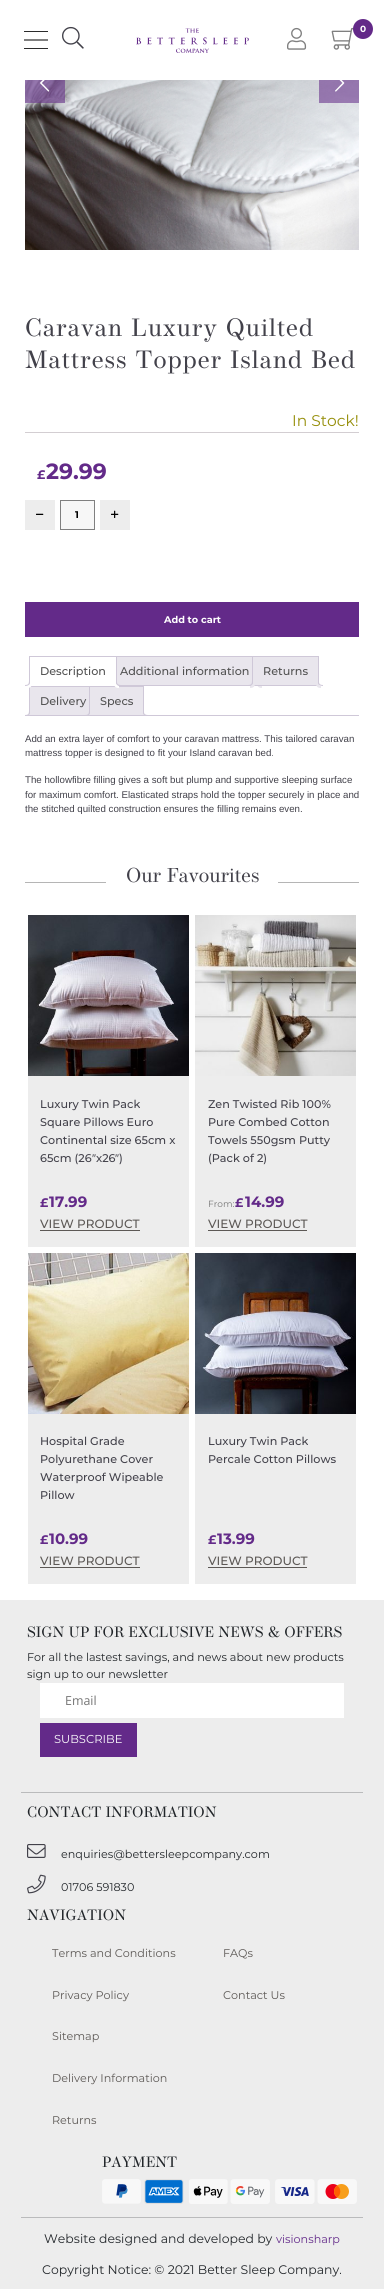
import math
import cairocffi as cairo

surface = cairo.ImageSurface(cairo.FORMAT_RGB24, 384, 2289)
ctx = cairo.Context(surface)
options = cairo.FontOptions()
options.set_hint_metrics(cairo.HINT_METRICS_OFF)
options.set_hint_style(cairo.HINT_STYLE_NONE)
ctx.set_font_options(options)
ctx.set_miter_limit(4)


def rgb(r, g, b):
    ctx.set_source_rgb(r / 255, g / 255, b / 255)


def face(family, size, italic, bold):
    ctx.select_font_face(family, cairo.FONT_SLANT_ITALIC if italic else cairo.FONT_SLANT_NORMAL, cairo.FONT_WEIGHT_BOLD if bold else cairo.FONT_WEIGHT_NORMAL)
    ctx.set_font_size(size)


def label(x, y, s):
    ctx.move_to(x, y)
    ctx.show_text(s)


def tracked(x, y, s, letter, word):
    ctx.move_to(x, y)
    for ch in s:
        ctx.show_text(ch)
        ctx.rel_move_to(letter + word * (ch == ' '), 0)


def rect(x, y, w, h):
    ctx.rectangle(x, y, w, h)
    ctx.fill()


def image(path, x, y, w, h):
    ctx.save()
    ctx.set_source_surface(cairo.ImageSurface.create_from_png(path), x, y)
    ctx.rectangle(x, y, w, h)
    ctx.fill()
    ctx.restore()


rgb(255, 255, 255)
ctx.paint()
rgb(43, 43, 43)
rect(24, 31, 24, 1)
ctx.new_path()
ctx.move_to(24, 40)
ctx.line_to(48, 40)
ctx.set_line_width(1.2)
ctx.stroke()
rect(24, 48, 24, 1)
image('image0.png', 62, 26, 22, 23)
image('image1.png', 136, 28, 113, 25)
image('image2.png', 287, 27, 20, 23)
image('image3.png', 331, 27, 23, 23)
rgb(99, 41, 136)
ctx.arc(363, 29, 10, 0, 2 * math.pi)
ctx.fill()
face('Montserrat', 9, 0, 1)
rgb(255, 255, 255)
label(360, 32, '0')
image('image4.png', 25, 80, 334, 170)
ctx.set_source_rgba(0.388, 0.165, 0.537, 0.56)
rect(25, 80, 40, 23)
image('image5.png', 40, 80, 10, 12)
rect(319, 80, 40, 23)
image('image6.png', 335, 80, 10, 12)
face('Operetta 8', 24.9, 0, 0)
rgb(66, 65, 74)
tracked(25, 336, 'Caravan Luxury Quilted', 1, 0)
tracked(25, 368, 'Mattress Topper Island Bed', 1, 0)
rgb(211, 206, 210)
rect(25, 432, 334, 1)
face('Montserrat', 15.5, 0, 0)
rgb(149, 142, 9)
label(292, 426, 'In Stock!')
face('Montserrat', 12.45, 0, 1)
rgb(99, 42, 137)
label(37, 479, '£')
face('Montserrat', 22, 0, 1)
label(46, 479, '29.99')
rgb(237, 237, 237)
rect(25, 500, 30, 30)
image('image7.png', 36, 513, 8, 2)
rgb(247, 247, 247)
ctx.rectangle(60.5, 500.5, 34, 29)
ctx.fill_preserve()
rgb(128, 128, 128)
ctx.set_line_width(1)
ctx.stroke()
face('Montserrat', 9.7, 0, 1)
rgb(0, 0, 0)
label(75, 518, '1')
rgb(237, 237, 237)
rect(100, 500, 30, 30)
image('image8.png', 111, 510, 8, 8)
rgb(99, 42, 137)
rect(25, 602, 334, 35)
rgb(255, 255, 255)
label(164, 623, 'Add to cart')
rgb(233, 230, 237)
rect(117, 657, 135, 28)
ctx.rectangle(109.5, 656.5, 150, 29)
rgb(207, 200, 216)
ctx.stroke()
rgb(255, 255, 255)
rect(109, 657, 1, 28)
rgb(207, 200, 216)
rect(29, 656, 88, 1)
rect(116, 656, 1, 30)
rgb(255, 255, 255)
rect(109, 685, 8, 1)
rgb(207, 200, 216)
rect(29, 656, 1, 30)
face('Montserrat Medium', 11.2, 0, 0)
rgb(81, 81, 81)
label(40, 675, 'Description')
rgb(233, 230, 237)
rect(30, 687, 59, 28)
ctx.rectangle(29.5, 686.5, 67, 29)
rgb(207, 200, 216)
ctx.stroke()
rgb(255, 255, 255)
ctx.new_path()
ctx.move_to(27, 686)
ctx.line_to(27, 688)
ctx.curve_to(30.5, 688, 32, 686.5, 32, 683)
ctx.line_to(30, 683)
ctx.curve_to(29.5, 684.5, 28.5, 685.5, 27, 686)
ctx.close_path()
ctx.fill()
rgb(207, 200, 216)
ctx.set_fill_rule(cairo.FILL_RULE_EVEN_ODD)
ctx.new_path()
ctx.move_to(25, 681)
ctx.line_to(30, 681)
ctx.curve_to(30, 684.5, 28.5, 686, 25, 686)
ctx.close_path()
ctx.move_to(25, 681)
ctx.line_to(29, 681)
ctx.curve_to(29, 684, 28, 685, 25, 685)
ctx.close_path()
ctx.fill()
rgb(233, 230, 237)
ctx.rectangle(89.5, 686.5, 54, 29)
ctx.fill_preserve()
rgb(207, 200, 216)
ctx.stroke()
rgb(255, 255, 255)
ctx.set_fill_rule(cairo.FILL_RULE_WINDING)
ctx.new_path()
ctx.move_to(114, 683)
ctx.curve_to(114, 686.5, 115.5, 688, 119, 688)
ctx.line_to(119, 686)
ctx.curve_to(117.5, 685.5, 116.5, 684.5, 116, 683)
ctx.close_path()
ctx.fill()
rgb(207, 200, 216)
ctx.set_fill_rule(cairo.FILL_RULE_EVEN_ODD)
ctx.new_path()
ctx.move_to(116, 681)
ctx.line_to(121, 681)
ctx.line_to(121, 686)
ctx.curve_to(118.5, 686, 116, 685, 116, 682)
ctx.close_path()
ctx.move_to(117, 681)
ctx.line_to(121, 681)
ctx.line_to(121, 685)
ctx.curve_to(119, 685, 117, 684.5, 117, 682)
ctx.close_path()
ctx.fill()
rgb(81, 81, 81)
label(120, 675, 'Additional information')
rgb(233, 230, 237)
ctx.set_fill_rule(cairo.FILL_RULE_WINDING)
ctx.new_path()
ctx.move_to(257, 683)
ctx.curve_to(257, 686.5, 258.5, 688, 262, 688)
ctx.line_to(262, 686)
ctx.curve_to(260.5, 685.5, 259.5, 684.5, 259, 683)
ctx.close_path()
ctx.fill()
ctx.rectangle(252.5, 656.5, 66, 29)
ctx.fill_preserve()
rgb(207, 200, 216)
ctx.stroke()
rgb(81, 81, 81)
label(263, 675, 'Returns')
rgb(233, 230, 237)
ctx.new_path()
ctx.move_to(250, 686)
ctx.line_to(250, 688)
ctx.curve_to(253.5, 688, 255, 686.5, 255, 683)
ctx.line_to(253, 683)
ctx.curve_to(252.5, 684.5, 251.5, 685.5, 250, 686)
ctx.close_path()
ctx.fill()
rgb(207, 200, 216)
ctx.set_fill_rule(cairo.FILL_RULE_EVEN_ODD)
ctx.new_path()
ctx.move_to(248, 681)
ctx.line_to(253, 681)
ctx.curve_to(253, 684.5, 251.5, 686, 248, 686)
ctx.close_path()
ctx.move_to(248, 681)
ctx.line_to(252, 681)
ctx.curve_to(252, 684, 251, 685, 248, 685)
ctx.close_path()
ctx.fill()
rgb(233, 230, 237)
ctx.set_fill_rule(cairo.FILL_RULE_WINDING)
ctx.new_path()
ctx.move_to(316, 683)
ctx.curve_to(316, 686.5, 317.5, 688, 321, 688)
ctx.line_to(321, 686)
ctx.curve_to(319.5, 685.5, 318.5, 684.5, 318, 683)
ctx.close_path()
ctx.fill()
rgb(207, 200, 216)
ctx.set_fill_rule(cairo.FILL_RULE_EVEN_ODD)
ctx.new_path()
ctx.move_to(318, 681)
ctx.line_to(323, 681)
ctx.line_to(323, 686)
ctx.curve_to(320.5, 686, 318, 685, 318, 682)
ctx.close_path()
ctx.move_to(319, 681)
ctx.line_to(323, 681)
ctx.line_to(323, 685)
ctx.curve_to(321, 685, 319, 684.5, 319, 682)
ctx.close_path()
ctx.fill()
rgb(81, 81, 81)
label(40, 705, 'Delivery')
ctx.save()
ctx.set_fill_rule(cairo.FILL_RULE_WINDING)
ctx.rectangle(25, 656, 334, 60)
ctx.clip()
rgb(233, 230, 237)
ctx.new_path()
ctx.move_to(27, 716)
ctx.line_to(27, 718)
ctx.curve_to(30.5, 718, 32, 716.5, 32, 713)
ctx.line_to(30, 713)
ctx.curve_to(29.5, 714.5, 28.5, 715.5, 27, 716)
ctx.close_path()
ctx.fill()
ctx.restore()
rgb(207, 200, 216)
ctx.new_path()
ctx.move_to(25, 711)
ctx.line_to(30, 711)
ctx.curve_to(30, 714.5, 28.5, 716, 25, 716)
ctx.close_path()
ctx.move_to(25, 711)
ctx.line_to(29, 711)
ctx.curve_to(29, 714, 28, 715, 25, 715)
ctx.close_path()
ctx.fill()
rgb(81, 81, 81)
label(100, 705, 'Specs')
ctx.save()
ctx.set_fill_rule(cairo.FILL_RULE_WINDING)
ctx.rectangle(25, 656, 334, 60)
ctx.clip()
rgb(233, 230, 237)
ctx.new_path()
ctx.move_to(87, 716)
ctx.line_to(87, 718)
ctx.curve_to(90.5, 718, 92, 716.5, 92, 713)
ctx.line_to(90, 713)
ctx.curve_to(89.5, 714.5, 88.5, 715.5, 87, 716)
ctx.close_path()
ctx.fill()
ctx.restore()
rgb(207, 200, 216)
ctx.new_path()
ctx.move_to(85, 711)
ctx.line_to(90, 711)
ctx.curve_to(90, 714.5, 88.5, 716, 85, 716)
ctx.close_path()
ctx.move_to(85, 711)
ctx.line_to(89, 711)
ctx.curve_to(89, 714, 88, 715, 85, 715)
ctx.close_path()
ctx.fill()
ctx.save()
ctx.set_fill_rule(cairo.FILL_RULE_WINDING)
ctx.rectangle(25, 656, 334, 60)
ctx.clip()
rgb(233, 230, 237)
ctx.new_path()
ctx.move_to(141, 713)
ctx.curve_to(141, 716.5, 142.5, 718, 146, 718)
ctx.line_to(146, 716)
ctx.curve_to(144.5, 715.5, 143.5, 714.5, 143, 713)
ctx.close_path()
ctx.fill()
ctx.restore()
ctx.new_path()
ctx.move_to(143, 711)
ctx.line_to(148, 711)
ctx.line_to(148, 716)
ctx.curve_to(145.5, 716, 143, 715, 143, 712)
ctx.close_path()
ctx.move_to(144, 711)
ctx.line_to(148, 711)
ctx.line_to(148, 715)
ctx.curve_to(146, 715, 144, 714.5, 144, 712)
ctx.close_path()
ctx.fill()
rect(25, 715, 334, 1)
face('Liberation Sans', 9.7, 0, 0)
rgb(66, 65, 74)
label(25, 742, 'Add an extra layer of comfort to your caravan mattress. This tailored caravan')
label(25, 756, 'mattress topper is designed to fit your Island caravan bed.')
label(25, 783, 'The hollowfibre filling gives a soft but plump and supportive sleeping surface')
label(25, 798, 'for maximum comfort. Elasticated straps hold the topper securely in place and')
label(25, 812, 'the stitched quilted construction ensures the filling remains even.')
rgb(181, 181, 181)
rect(25, 882, 81, 1)
face('Operetta 8', 20, 0, 0)
rgb(66, 65, 74)
label(126, 882, 'Our Favourites')
rgb(181, 181, 181)
rect(278, 882, 81, 1)
image('image9.png', 28, 915, 161, 161)
rgb(237, 237, 237)
rect(28, 1076, 161, 171)
face('Montserrat Medium', 11.2, 0, 0)
rgb(66, 65, 74)
label(40, 1108, 'Luxury Twin Pack')
label(40, 1126, 'Square Pillows Euro')
label(40, 1144, 'Continental size 65cm x')
label(40, 1162, '65cm (26')
face('Liberation Sans', 11.2, 0, 0)
label(92, 1162, '″')
face('Montserrat Medium', 11.2, 0, 0)
label(96, 1162, 'x26')
face('Liberation Sans', 11.2, 0, 0)
label(115, 1162, '″')
face('Montserrat Medium', 11.2, 0, 0)
label(119, 1162, ')')
face('Montserrat', 12.45, 0, 1)
rgb(99, 42, 137)
label(40, 1207, '£')
face('Montserrat', 15, 0, 1)
label(49, 1207, '17.99')
rgb(92, 88, 85)
rect(40, 1230, 100, 1)
face('Montserrat Medium', 12, 0, 0)
label(40, 1228, 'VIEW PRODUCT')
image('image10.png', 195, 915, 161, 161)
rgb(237, 237, 237)
rect(195, 1076, 161, 171)
face('Montserrat Medium', 11.2, 0, 0)
rgb(66, 65, 74)
label(208, 1108, 'Zen Twisted Rib 100%')
label(208, 1126, 'Pure Combed Cotton')
label(208, 1144, 'Towels 550gsm Putty')
label(208, 1162, '(Pack of 2)')
face('Montserrat', 9, 0, 0)
rgb(117, 117, 117)
label(208, 1207, 'From:')
face('Montserrat', 12.45, 0, 1)
rgb(99, 42, 137)
label(235, 1207, '£')
face('Montserrat', 15, 0, 1)
label(245, 1207, '14.99')
rgb(92, 88, 85)
rect(208, 1230, 99, 1)
face('Montserrat Medium', 12, 0, 0)
label(208, 1228, 'VIEW PRODUCT')
image('image11.png', 28, 1253, 161, 161)
rgb(237, 237, 237)
rect(28, 1414, 161, 170)
face('Montserrat Medium', 11.2, 0, 0)
rgb(66, 65, 74)
label(40, 1445, 'Hospital Grade')
label(40, 1463, 'Polyurethane Cover')
label(40, 1481, 'Waterproof Wipeable')
label(40, 1499, 'Pillow')
face('Montserrat', 12.45, 0, 1)
rgb(99, 42, 137)
label(40, 1544, '£')
face('Montserrat', 15, 0, 1)
label(49, 1544, '10.99')
rgb(92, 88, 85)
rect(40, 1567, 100, 1)
face('Montserrat Medium', 12, 0, 0)
label(40, 1565, 'VIEW PRODUCT')
image('image12.png', 195, 1253, 161, 161)
rgb(237, 237, 237)
rect(195, 1414, 161, 170)
face('Montserrat Medium', 11.2, 0, 0)
rgb(66, 65, 74)
label(208, 1445, 'Luxury Twin Pack')
label(208, 1463, 'Percale Cotton Pillows')
face('Montserrat', 12.45, 0, 1)
rgb(99, 42, 137)
label(208, 1544, '£')
face('Montserrat', 15, 0, 1)
label(217, 1544, '13.99')
rgb(92, 88, 85)
rect(208, 1567, 99, 1)
face('Montserrat Medium', 12, 0, 0)
label(208, 1565, 'VIEW PRODUCT')
rgb(237, 237, 237)
rect(0, 1600, 384, 689)
face('Operetta 8', 14.9, 0, 0)
rgb(33, 37, 41)
label(27, 1637, 'SIGN UP FOR EXCLUSIVE NEWS & OFFERS')
face('Montserrat', 11.2, 0, 0)
label(27, 1661, 'For all the lastest savings, and news about new products')
label(27, 1678, 'sign up to our newsletter')
rgb(255, 255, 255)
rect(40, 1683, 304, 35)
face('Open Sans', 12.45, 0, 0)
rgb(117, 117, 117)
label(65, 1705, 'Email')
rgb(99, 42, 137)
rect(40, 1723, 97, 34)
face('Montserrat', 11.5, 0, 0)
rgb(255, 255, 255)
label(54, 1743, 'SUBSCRIBE')
rgb(186, 187, 188)
rect(21, 1792, 342, 1)
face('Operetta 8', 14.9, 0, 0)
rgb(33, 37, 41)
label(27, 1817, 'CONTACT INFORMATION')
image('image13.png', 27, 1844, 19, 14)
face('Montserrat', 11.2, 0, 0)
label(61, 1858, 'enquiries@bettersleepcompany.com')
image('image14.png', 27, 1874, 19, 20)
label(61, 1891, '01706 591830')
face('Operetta 8', 14.9, 0, 0)
label(27, 1920, 'NAVIGATION')
face('Montserrat', 11.2, 0, 0)
rgb(92, 88, 85)
label(52, 1957, 'Terms and Conditions')
label(223, 1957, 'FAQs')
label(52, 1999, 'Privacy Policy')
label(223, 1999, 'Contact Us')
label(52, 2040, 'Sitemap')
label(52, 2082, 'Delivery Information')
label(52, 2124, 'Returns')
face('Operetta 8', 14.9, 0, 0)
rgb(33, 37, 41)
label(102, 2167, 'PAYMENT')
image('image15.png', 102, 2179, 255, 25)
rgb(186, 187, 188)
rect(21, 2217, 342, 1)
face('Montserrat', 12.45, 0, 0)
rgb(33, 37, 41)
label(44, 2243, 'Website designed and developed by')
face('Montserrat', 11.2, 0, 0)
rgb(99, 42, 137)
label(276, 2243, 'visionsharp')
face('Montserrat', 12.45, 0, 0)
rgb(33, 37, 41)
label(42, 2274, 'Copyright Notice: © 2021 Better Sleep Company.')
surface.write_to_png('render.png')
